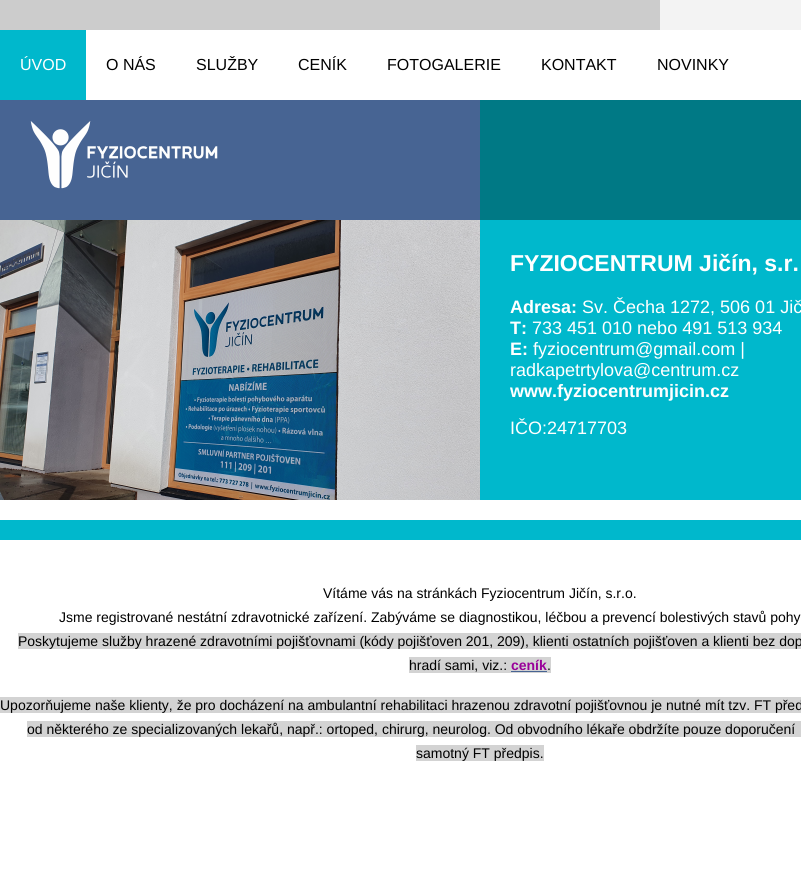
import math
import cairocffi as cairo

surface = cairo.ImageSurface(cairo.FORMAT_RGB24, 801, 882)
ctx = cairo.Context(surface)
options = cairo.FontOptions()
options.set_hint_metrics(cairo.HINT_METRICS_OFF)
options.set_hint_style(cairo.HINT_STYLE_NONE)
ctx.set_font_options(options)
ctx.set_miter_limit(4)


def rgb(r, g, b):
    ctx.set_source_rgb(r / 255, g / 255, b / 255)


def face(family, size, italic, bold):
    ctx.select_font_face(family, cairo.FONT_SLANT_ITALIC if italic else cairo.FONT_SLANT_NORMAL, cairo.FONT_WEIGHT_BOLD if bold else cairo.FONT_WEIGHT_NORMAL)
    ctx.set_font_size(size)


def label(x, y, s):
    ctx.move_to(x, y)
    ctx.show_text(s)


def rect(x, y, w, h):
    ctx.rectangle(x, y, w, h)
    ctx.fill()


def image(path, x, y, w, h):
    ctx.save()
    ctx.set_source_surface(cairo.ImageSurface.create_from_png(path), x, y)
    ctx.rectangle(x, y, w, h)
    ctx.fill()
    ctx.restore()


rgb(255, 255, 255)
ctx.paint()
image('image0.png', 0, 0, 801, 100)
rgb(243, 243, 243)
rect(660, 0, 141, 30)
rgb(0, 184, 204)
rect(0, 30, 86, 70)
face('Liberation Sans', 16, 0, 0)
rgb(255, 255, 255)
label(20, 70, 'ÚVOD')
rgb(0, 0, 0)
label(106, 70, 'O NÁS')
label(196, 70, 'SLUŽBY')
label(298, 70, 'CENÍK')
label(387, 70, 'FOTOGALERIE')
label(541, 70, 'KONTAKT')
label(657, 70, 'NOVINKY')
rgb(71, 100, 147)
rect(0, 100, 480, 120)
image('image1.png', 30, 121, 188, 68)
rgb(0, 121, 133)
rect(480, 100, 321, 120)
image('image2.png', 0, 220, 480, 280)
rgb(0, 184, 204)
rect(480, 220, 321, 280)
face('Liberation Sans', 23, 0, 1)
rgb(255, 255, 255)
label(510, 271, 'FYZIOCENTRUM Jičín, s.r.')
face('Liberation Sans', 18, 0, 1)
label(510, 313, 'Adresa:')
face('Liberation Sans', 18, 0, 0)
label(582, 313, 'Sv. Čecha 1272, 506 01 Jič')
face('Liberation Sans', 18, 0, 1)
label(510, 334, 'T:')
face('Liberation Sans', 18, 0, 0)
label(532, 334, '733 451 010 nebo 491 513 934')
face('Liberation Sans', 18, 0, 1)
label(510, 355, 'E:')
face('Liberation Sans', 18, 0, 0)
label(533, 355, 'fyziocentrum@gmail.com |')
label(510, 376, 'radkapetrtylova@centrum.cz')
face('Liberation Sans', 18, 0, 1)
label(510, 397, 'www.fyziocentrumjicin.cz')
face('Liberation Sans', 18, 0, 0)
label(510, 434, 'IČO:24717703')
rgb(0, 184, 204)
rect(0, 520, 801, 20)
face('Liberation Sans', 14, 0, 0)
rgb(0, 0, 0)
label(323, 598, 'Vítáme vás na stránkách Fyziocentrum Jičín, s.r.o.')
label(59, 622, 'Jsme registrované nestátní zdravotnické zařízení. Zabýváme se diagnostikou, léčbou a prevencí bolestivých stavů pohy')
rgb(211, 211, 211)
rect(18, 633, 783, 16)
rgb(0, 0, 0)
label(18, 646, 'Poskytujeme služby hrazené zdravotními pojišťovnami (kódy pojišťoven 201, 209), klienti ostatních pojišťoven a klienti bez dop')
rgb(211, 211, 211)
rect(409, 657, 142, 16)
rgb(0, 0, 0)
label(409, 670, 'hradí sami, viz.:')
face('Liberation Sans', 14, 0, 1)
rgb(153, 0, 153)
label(511, 670, 'ceník')
rgb(71, 100, 147)
rect(511, 671, 36, 1)
face('Liberation Sans', 14, 0, 0)
rgb(0, 0, 0)
label(547, 670, '.')
rgb(211, 211, 211)
rect(0, 697, 801, 16)
rgb(0, 0, 0)
label(0, 710, 'Upozorňujeme naše klienty, že pro docházení na ambulantní rehabilitaci hrazenou zdravotní pojišťovnou je nutné mít tzv. FT před')
rgb(211, 211, 211)
rect(27, 721, 774, 16)
rgb(0, 0, 0)
label(27, 734, 'od některého ze specializovaných lekařů, např.: ortoped, chirurg, neurolog. Od obvodního lékaře obdržíte pouze doporučení')
rgb(211, 211, 211)
rect(416, 745, 128, 16)
rgb(0, 0, 0)
label(416, 758, 'samotný FT předpis.')
surface.write_to_png('render.png')
